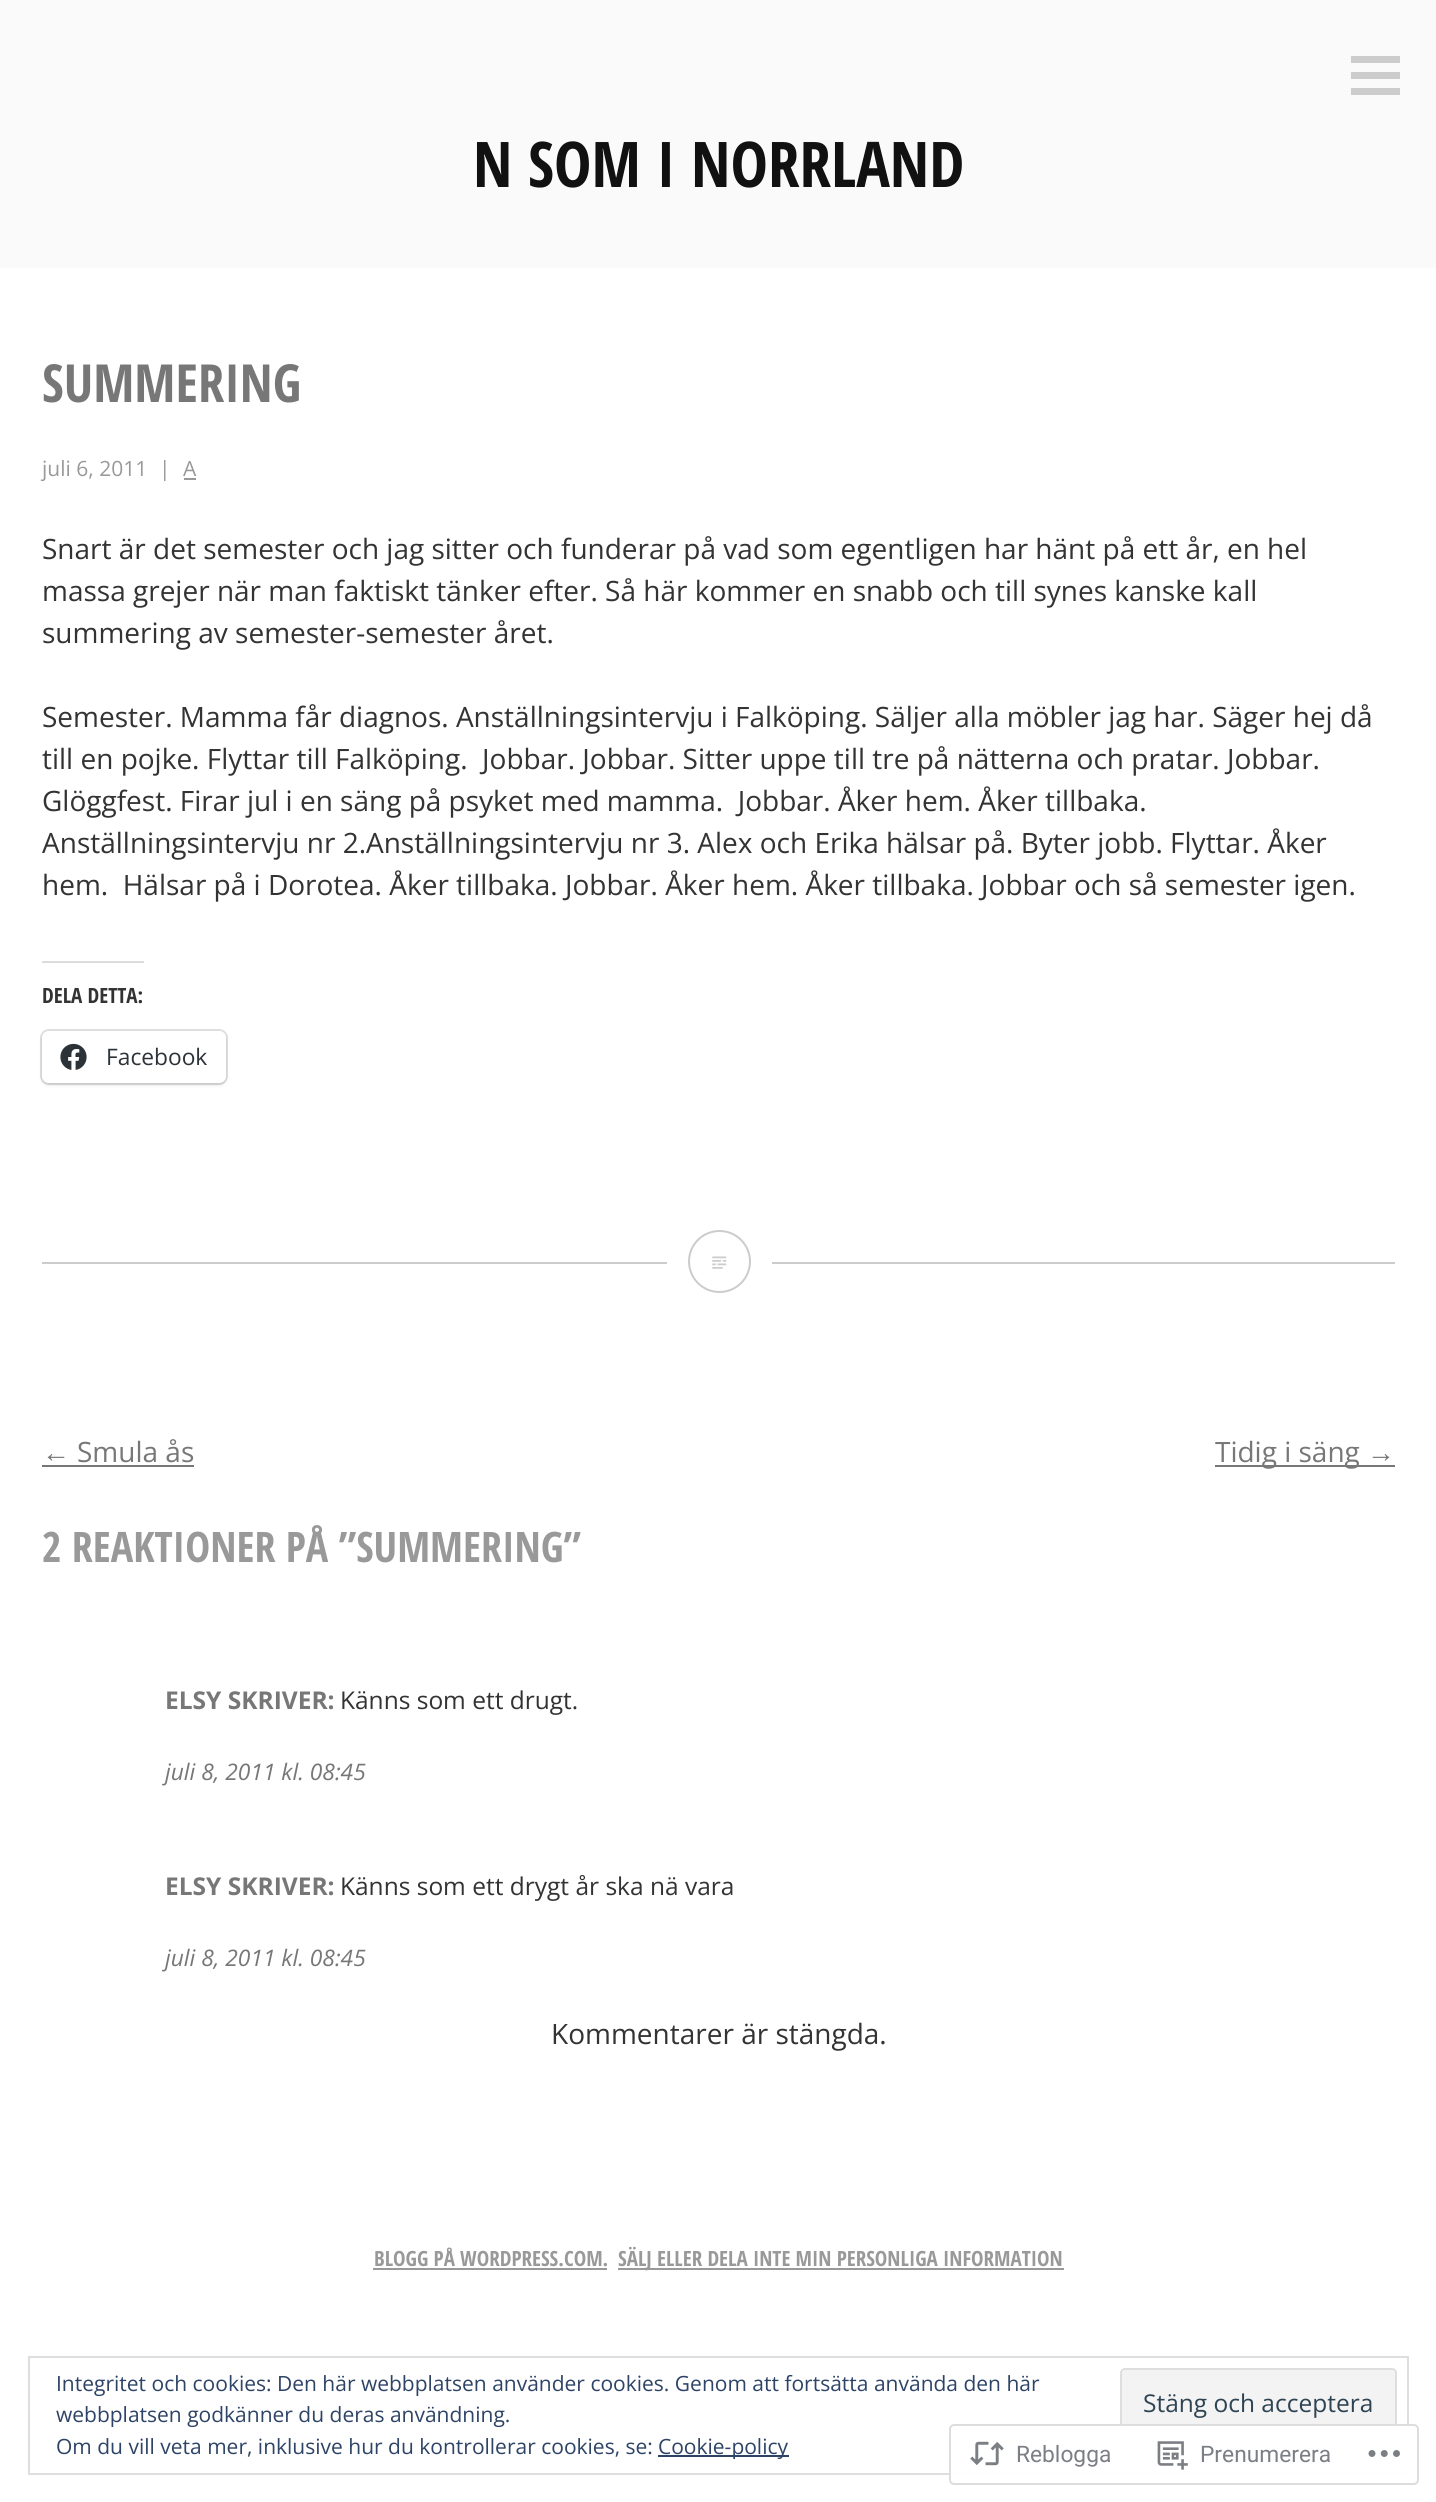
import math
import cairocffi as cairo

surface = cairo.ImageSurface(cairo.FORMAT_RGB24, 1436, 2502)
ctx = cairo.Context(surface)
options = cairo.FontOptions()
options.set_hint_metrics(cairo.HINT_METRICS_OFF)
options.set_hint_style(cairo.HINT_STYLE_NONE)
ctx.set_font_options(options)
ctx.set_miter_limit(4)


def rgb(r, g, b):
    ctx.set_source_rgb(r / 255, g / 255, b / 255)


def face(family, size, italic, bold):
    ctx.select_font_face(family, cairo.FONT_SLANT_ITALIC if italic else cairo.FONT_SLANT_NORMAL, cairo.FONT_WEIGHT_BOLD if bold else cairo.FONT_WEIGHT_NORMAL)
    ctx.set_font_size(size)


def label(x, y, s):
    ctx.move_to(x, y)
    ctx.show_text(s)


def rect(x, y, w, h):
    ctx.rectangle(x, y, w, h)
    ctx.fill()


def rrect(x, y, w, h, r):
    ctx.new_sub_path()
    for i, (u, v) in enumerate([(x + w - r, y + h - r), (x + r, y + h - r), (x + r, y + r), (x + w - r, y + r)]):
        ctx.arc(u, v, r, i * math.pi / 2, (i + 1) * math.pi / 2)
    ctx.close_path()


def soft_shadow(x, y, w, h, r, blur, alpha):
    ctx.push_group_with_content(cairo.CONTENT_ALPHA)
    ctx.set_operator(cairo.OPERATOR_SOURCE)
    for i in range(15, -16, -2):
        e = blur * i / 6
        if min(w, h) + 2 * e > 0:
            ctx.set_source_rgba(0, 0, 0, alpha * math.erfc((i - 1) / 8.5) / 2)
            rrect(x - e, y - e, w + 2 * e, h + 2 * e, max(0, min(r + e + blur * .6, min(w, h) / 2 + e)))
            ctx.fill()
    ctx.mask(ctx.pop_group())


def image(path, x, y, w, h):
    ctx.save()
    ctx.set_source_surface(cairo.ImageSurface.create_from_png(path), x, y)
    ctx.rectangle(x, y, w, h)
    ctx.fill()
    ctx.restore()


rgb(255, 255, 255)
ctx.paint()
rgb(250, 250, 250)
rect(0, 0, 1436, 268)
rgb(204, 204, 204)
rect(1351, 56, 49, 7)
rect(1351, 72, 49, 7)
rect(1351, 88, 49, 7)
face('Open Sans Condensed', 63, 0, 1)
rgb(17, 17, 17)
label(473, 187, 'N SOM I NORRLAND')
rgb(204, 204, 204)
rect(42, 1262, 1353, 2)
face('Open Sans Condensed', 52.5, 0, 1)
rgb(119, 119, 119)
label(42, 402, 'SUMMERING')
face('Open Sans', 21, 0, 0)
rgb(153, 153, 153)
label(42, 476, 'juli 6, 2011')
label(159, 476, '|')
label(183, 476, 'A')
rect(184, 478, 12, 2)
face('Open Sans', 28, 0, 0)
rgb(51, 51, 51)
label(42, 559, 'Snart är det semester och jag sitter och funderar på vad som egentligen har hänt på ett år, en hel')
label(42, 601, 'massa grejer när man faktiskt tänker efter. Så här kommer en snabb och till synes kanske kall')
label(42, 643, 'summering av semester-semester året.')
label(42, 727, 'Semester. Mamma får diagnos. Anställningsintervju i Falköping. Säljer alla möbler jag har. Säger hej då')
label(42, 769, 'till en pojke. Flyttar till Falköping.  Jobbar. Jobbar. Sitter uppe till tre på nätterna och pratar. Jobbar.')
label(42, 811, 'Glöggfest. Firar jul i en säng på psyket med mamma.  Jobbar. Åker hem. Åker tillbaka.')
label(42, 853, 'Anställningsintervju nr 2.Anställningsintervju nr 3. Alex och Erika hälsar på. Byter jobb. Flyttar. Åker')
label(42, 895, 'hem.  Hälsar på i Dorotea. Åker tillbaka. Jobbar. Åker hem. Åker tillbaka. Jobbar och så semester igen.')
rgb(220, 220, 222)
rect(42, 961, 102, 2)
face('Open Sans Condensed', 21, 0, 1)
rgb(51, 51, 51)
label(42, 1003, 'DELA DETTA:')
rrect(41, 1030, 186, 54, 8)
rgb(224, 224, 224)
ctx.stroke()
rgb(0, 0, 0)
soft_shadow(42, 1033, 184, 52, 7, 2, 0.12)
rgb(255, 255, 255)
rrect(42, 1031, 184, 52, 7)
ctx.fill()
image('image0.png', 60, 1043, 27, 27)
face('Open Sans', 22.75, 0, 0)
rgb(44, 51, 56)
label(106, 1065, 'Facebook')
rgb(255, 255, 255)
rect(667, 1262, 105, 2)
ctx.new_path()
ctx.arc(719.5, 1261.5, 30.5, 0, 2 * math.pi)
rgb(204, 204, 204)
ctx.stroke()
image('image1.png', 712, 1256, 15, 13)
face('Liberation Sans', 28, 0, 0)
rgb(119, 119, 119)
label(42, 1462, '←')
rect(42, 1465, 152, 2)
face('Open Sans', 28, 0, 0)
label(77, 1462, 'Smula ås')
rect(1215, 1465, 180, 2)
label(1215, 1462, 'Tidig i säng')
face('Liberation Sans', 28, 0, 0)
label(1367, 1462, '→')
face('Open Sans Condensed', 42, 0, 1)
rgb(153, 153, 153)
label(42, 1562, '2 REAKTIONER PÅ ”SUMMERING”')
face('Open Sans', 24.5, 0, 1)
rgb(119, 119, 119)
label(165, 1709, 'ELSY SKRIVER:')
face('Open Sans', 24.5, 0, 0)
rgb(51, 51, 51)
label(340, 1709, 'Känns som ett drugt.')
face('Open Sans', 22.75, 1, 0)
rgb(119, 119, 119)
label(165, 1780, 'juli 8, 2011 kl. 08:45')
face('Open Sans', 24.5, 0, 1)
label(165, 1895, 'ELSY SKRIVER:')
face('Open Sans', 24.5, 0, 0)
rgb(51, 51, 51)
label(340, 1895, 'Känns som ett drygt år ska nä vara')
face('Open Sans', 22.75, 1, 0)
rgb(119, 119, 119)
label(165, 1966, 'juli 8, 2011 kl. 08:45')
face('Open Sans', 28, 0, 0)
rgb(51, 51, 51)
label(551, 2044, 'Kommentarer är stängda.')
face('Open Sans Condensed', 21, 0, 1)
rgb(153, 153, 153)
label(374, 2266, 'BLOGG PÅ WORDPRESS.COM.')
rect(373, 2268, 234, 2)
rect(618, 2268, 446, 2)
label(618, 2266, 'SÄLJ ELLER DELA INTE MIN PERSONLIGA INFORMATION')
ctx.rectangle(29, 2357, 1379, 117)
rgb(222, 222, 222)
ctx.stroke()
face('Open Sans', 21, 0, 0)
rgb(46, 68, 103)
label(56, 2391, 'Integritet och cookies: Den här webbplatsen använder cookies. Genom att fortsätta använda den här')
label(56, 2422, 'webbplatsen godkänner du deras användning.')
rgb(243, 243, 243)
rrect(1121, 2369, 275, 66, 4)
ctx.fill_preserve()
rgb(222, 222, 222)
ctx.stroke()
face('Open Sans', 24.5, 0, 0)
rgb(46, 68, 83)
label(1143, 2412, 'Stäng och acceptera')
face('Open Sans', 21, 0, 0)
rgb(46, 68, 103)
label(56, 2454, 'Om du vill veta mer, inklusive hur du kontrollerar cookies, se:')
rect(658, 2455, 131, 2)
label(658, 2454, 'Cookie-policy')
ctx.set_source_rgba(1, 1, 1, 0.98)
rrect(950, 2425, 468, 59, 4)
ctx.fill_preserve()
rgb(221, 221, 223)
ctx.stroke()
image('image2.png', 970, 2441, 34, 25)
face('Roboto', 22.75, 0, 0)
rgb(123, 127, 133)
label(1016, 2462, 'Reblogga')
image('image3.png', 1157, 2441, 31, 29)
label(1200, 2462, 'Prenumerera')
image('image4.png', 1368, 2450, 32, 7)
surface.write_to_png('render.png')
